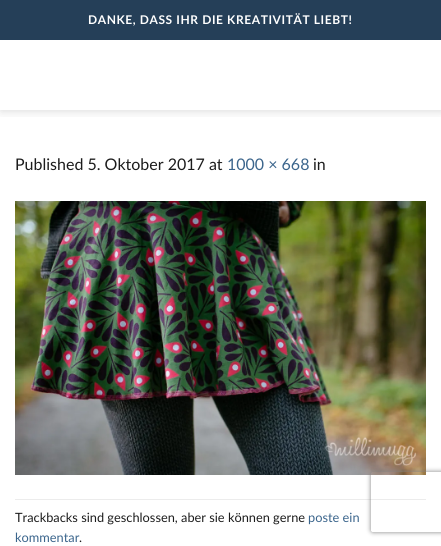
import math
import cairocffi as cairo

surface = cairo.ImageSurface(cairo.FORMAT_RGB24, 441, 546)
ctx = cairo.Context(surface)
options = cairo.FontOptions()
options.set_hint_metrics(cairo.HINT_METRICS_OFF)
options.set_hint_style(cairo.HINT_STYLE_NONE)
ctx.set_font_options(options)
ctx.set_miter_limit(4)


def rgb(r, g, b):
    ctx.set_source_rgb(r / 255, g / 255, b / 255)


def face(family, size, italic, bold):
    ctx.select_font_face(family, cairo.FONT_SLANT_ITALIC if italic else cairo.FONT_SLANT_NORMAL, cairo.FONT_WEIGHT_BOLD if bold else cairo.FONT_WEIGHT_NORMAL)
    ctx.set_font_size(size)


def label(x, y, s):
    ctx.move_to(x, y)
    ctx.show_text(s)


def tracked(x, y, s, letter, word):
    ctx.move_to(x, y)
    for ch in s:
        ctx.show_text(ch)
        ctx.rel_move_to(letter + word * (ch == ' '), 0)


def rect(x, y, w, h):
    ctx.rectangle(x, y, w, h)
    ctx.fill()


def rrect(x, y, w, h, r):
    ctx.new_sub_path()
    for i, (u, v) in enumerate([(x + w - r, y + h - r), (x + r, y + h - r), (x + r, y + r), (x + w - r, y + r)]):
        ctx.arc(u, v, r, i * math.pi / 2, (i + 1) * math.pi / 2)
    ctx.close_path()


def soft_shadow(x, y, w, h, r, blur, alpha):
    ctx.push_group_with_content(cairo.CONTENT_ALPHA)
    ctx.set_operator(cairo.OPERATOR_SOURCE)
    for i in range(15, -16, -2):
        e = blur * i / 6
        if min(w, h) + 2 * e > 0:
            ctx.set_source_rgba(0, 0, 0, alpha * math.erfc((i - 1) / 8.5) / 2)
            rrect(x - e, y - e, w + 2 * e, h + 2 * e, max(0, min(r + e + blur * .6, min(w, h) / 2 + e)))
            ctx.fill()
    ctx.mask(ctx.pop_group())


def image(path, x, y, w, h):
    ctx.save()
    ctx.set_source_surface(cairo.ImageSurface.create_from_png(path), x, y)
    ctx.rectangle(x, y, w, h)
    ctx.fill()
    ctx.restore()


rgb(255, 255, 255)
ctx.paint()
ctx.save()
ctx.rectangle(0, 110, 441, 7)
ctx.clip()
rgb(0, 0, 0)
soft_shadow(1, 1, 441, 110, 0, 5, 0.15)
ctx.restore()
rgb(37, 63, 88)
rect(0, 0, 441, 40)
face('Lato', 12, 0, 1)
rgb(255, 255, 255)
tracked(88, 24, 'DANKE, DASS IHR DIE KREATIVITÄT LIEBT!', 0.6, 0)
face('Lato', 16, 0, 0)
rgb(28, 28, 28)
label(15, 170, 'Published 5. Oktober 2017 at')
rgb(59, 101, 140)
label(227, 170, '1000 × 668')
rgb(28, 28, 28)
label(313, 170, 'in')
image('image0.png', 15, 201, 411, 274)
rgb(236, 236, 236)
rect(15, 499, 411, 1)
face('Lato', 12.8, 0, 0)
rgb(28, 28, 28)
label(15, 522, 'Trackbacks sind geschlossen, aber sie können gerne')
rgb(59, 101, 140)
label(308, 522, 'poste ein')
label(15, 542, 'kommentar')
rgb(28, 28, 28)
label(79, 542, '.')
ctx.save()
ctx.set_fill_rule(cairo.FILL_RULE_EVEN_ODD)
ctx.new_path()
ctx.move_to(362, 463)
ctx.line_to(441, 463)
ctx.line_to(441, 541)
ctx.line_to(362, 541)
ctx.close_path()
ctx.move_to(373, 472)
ctx.line_to(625, 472)
ctx.curve_to(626, 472, 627, 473, 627, 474)
ctx.line_to(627, 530)
ctx.curve_to(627, 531, 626, 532, 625, 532)
ctx.line_to(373, 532)
ctx.curve_to(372, 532, 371, 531, 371, 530)
ctx.line_to(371, 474)
ctx.curve_to(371, 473, 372, 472, 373, 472)
ctx.close_path()
ctx.clip()
rgb(128, 128, 128)
soft_shadow(371, 472, 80, 60, 2, 2.5, 1)
ctx.restore()
surface.write_to_png('render.png')
